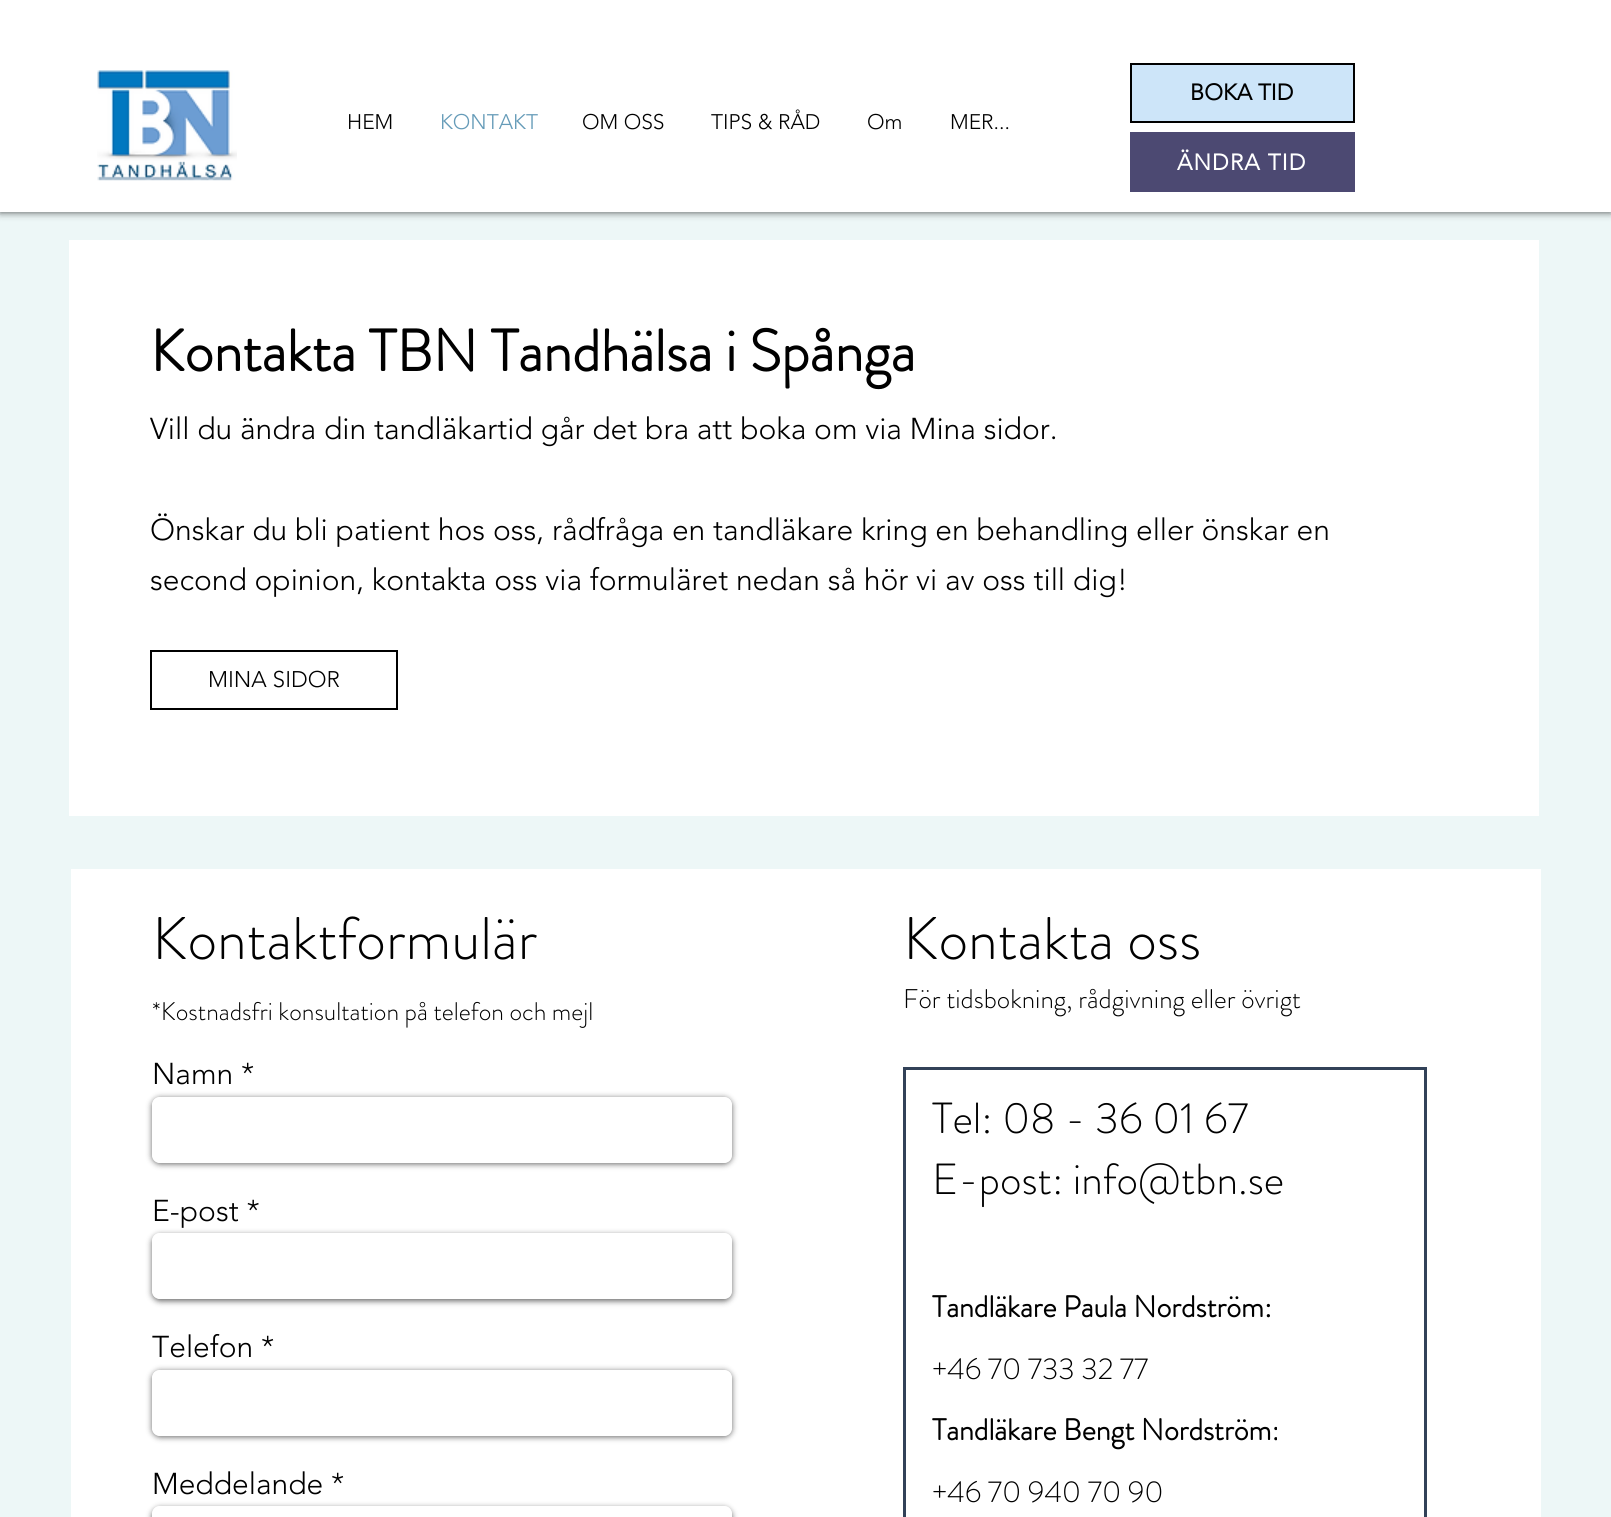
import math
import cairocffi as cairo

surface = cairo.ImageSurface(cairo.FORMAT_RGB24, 1611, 1517)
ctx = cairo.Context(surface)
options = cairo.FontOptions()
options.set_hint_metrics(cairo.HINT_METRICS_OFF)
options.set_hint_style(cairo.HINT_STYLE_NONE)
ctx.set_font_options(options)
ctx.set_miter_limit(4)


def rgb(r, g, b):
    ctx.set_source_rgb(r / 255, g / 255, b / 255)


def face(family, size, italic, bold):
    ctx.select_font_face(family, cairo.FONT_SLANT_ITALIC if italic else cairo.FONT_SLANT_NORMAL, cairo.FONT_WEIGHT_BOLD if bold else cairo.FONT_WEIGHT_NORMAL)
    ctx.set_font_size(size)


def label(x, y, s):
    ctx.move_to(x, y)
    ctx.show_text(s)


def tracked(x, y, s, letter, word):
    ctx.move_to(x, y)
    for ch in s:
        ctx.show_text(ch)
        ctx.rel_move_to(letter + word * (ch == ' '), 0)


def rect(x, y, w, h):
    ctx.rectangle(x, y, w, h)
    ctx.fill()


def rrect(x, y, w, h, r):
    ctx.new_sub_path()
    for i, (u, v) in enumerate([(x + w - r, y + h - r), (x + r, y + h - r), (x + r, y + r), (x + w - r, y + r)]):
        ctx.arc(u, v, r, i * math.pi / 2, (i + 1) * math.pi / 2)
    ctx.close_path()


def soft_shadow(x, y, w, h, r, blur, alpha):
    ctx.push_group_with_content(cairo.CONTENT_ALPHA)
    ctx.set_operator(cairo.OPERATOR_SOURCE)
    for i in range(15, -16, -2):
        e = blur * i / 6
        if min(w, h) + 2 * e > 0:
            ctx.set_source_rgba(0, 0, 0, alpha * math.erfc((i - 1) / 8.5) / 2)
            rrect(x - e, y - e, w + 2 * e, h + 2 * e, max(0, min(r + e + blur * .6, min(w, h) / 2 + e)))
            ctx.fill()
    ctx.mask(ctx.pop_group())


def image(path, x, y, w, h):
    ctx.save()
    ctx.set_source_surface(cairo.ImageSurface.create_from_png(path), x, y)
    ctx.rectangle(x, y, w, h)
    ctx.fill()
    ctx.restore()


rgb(237, 247, 247)
ctx.paint()
rgb(0, 0, 0)
soft_shadow(0, 0, 1611, 212, 0, 4, 0.7)
rgb(255, 255, 255)
rect(0, 0, 1611, 212)
image('image0.png', 97, 70, 140, 111)
rgb(205, 229, 249)
ctx.rectangle(1131, 64, 223, 58)
ctx.fill_preserve()
rgb(0, 0, 0)
ctx.stroke()
face('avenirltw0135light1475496', 22.5, 0, 1)
label(1190, 100, 'BOKA TID')
face('avenirltw0135light1475496 Light', 21, 0, 0)
label(347, 129, 'HEM')
rgb(101, 155, 184)
label(440, 129, 'KONTAKT')
rgb(0, 0, 0)
label(582, 129, 'OM OSS')
label(711, 129, 'TIPS & RÅD')
label(867, 129, 'Om')
label(950, 129, 'MER...')
rgb(76, 73, 114)
rect(1130, 132, 225, 60)
face('avenirltw0135light1475496', 22.5, 0, 1)
rgb(255, 255, 255)
tracked(1177, 170, 'ÄNDRA TID', 1.1, 0)
rect(69, 240, 1470, 576)
face('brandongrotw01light', 58.5, 0, 1)
rgb(0, 0, 0)
label(150, 371, 'Kontakta TBN Tandhälsa i Spånga')
face('avenirltw0135light1475496 Light', 30, 0, 0)
label(150, 439, 'Vill du ändra din tandläkartid går det bra att boka om via Mina sidor.')
label(150, 540, 'Önskar du bli patient hos oss, rådfråga en tandläkare kring en behandling eller önskar en')
label(150, 590, 'second opinion, kontakta oss via formuläret nedan så hör vi av oss till dig!')
ctx.rectangle(151, 651, 246, 58)
ctx.stroke()
face('avenirltw0135light1475496 Light', 22.5, 0, 0)
label(208, 687, 'MINA SIDOR')
rgb(255, 255, 255)
rect(71, 869, 1470, 648)
face('brandongrotw01light Light', 60, 0, 0)
rgb(0, 0, 0)
label(152, 959, 'Kontaktformulär')
face('brandongrotw01light Light', 25.5, 0, 0)
label(152, 1020, '*Kostnadsfri konsultation på telefon och mejl')
face('avenirltw0135light1475496 Light', 30, 0, 0)
label(152, 1084, 'Namn *')
ctx.save()
ctx.set_fill_rule(cairo.FILL_RULE_EVEN_ODD)
ctx.new_path()
ctx.move_to(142, 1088)
ctx.line_to(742, 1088)
ctx.line_to(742, 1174)
ctx.line_to(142, 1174)
ctx.close_path()
ctx.move_to(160, 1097)
ctx.line_to(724, 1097)
ctx.curve_to(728.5, 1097, 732, 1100.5, 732, 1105)
ctx.line_to(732, 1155)
ctx.curve_to(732, 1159.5, 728.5, 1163, 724, 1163)
ctx.line_to(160, 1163)
ctx.curve_to(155.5, 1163, 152, 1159.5, 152, 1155)
ctx.line_to(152, 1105)
ctx.curve_to(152, 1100.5, 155.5, 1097, 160, 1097)
ctx.close_path()
ctx.clip()
rgb(0, 0, 0)
soft_shadow(152, 1098, 580, 66, 8, 3, 0.6)
ctx.restore()
label(152, 1221, 'E-post *')
ctx.save()
ctx.set_fill_rule(cairo.FILL_RULE_EVEN_ODD)
ctx.new_path()
ctx.move_to(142, 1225)
ctx.line_to(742, 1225)
ctx.line_to(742, 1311)
ctx.line_to(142, 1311)
ctx.close_path()
ctx.move_to(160, 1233)
ctx.line_to(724, 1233)
ctx.curve_to(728.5, 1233, 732, 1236.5, 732, 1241)
ctx.line_to(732, 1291)
ctx.curve_to(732, 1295.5, 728.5, 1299, 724, 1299)
ctx.line_to(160, 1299)
ctx.curve_to(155.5, 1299, 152, 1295.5, 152, 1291)
ctx.line_to(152, 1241)
ctx.curve_to(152, 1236.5, 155.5, 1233, 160, 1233)
ctx.close_path()
ctx.clip()
rgb(0, 0, 0)
soft_shadow(152, 1235, 580, 66, 8, 3, 0.6)
ctx.restore()
label(152, 1357, 'Telefon *')
ctx.save()
ctx.set_fill_rule(cairo.FILL_RULE_EVEN_ODD)
ctx.new_path()
ctx.move_to(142, 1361)
ctx.line_to(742, 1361)
ctx.line_to(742, 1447)
ctx.line_to(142, 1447)
ctx.close_path()
ctx.move_to(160, 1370)
ctx.line_to(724, 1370)
ctx.curve_to(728.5, 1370, 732, 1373.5, 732, 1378)
ctx.line_to(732, 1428)
ctx.curve_to(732, 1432.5, 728.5, 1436, 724, 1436)
ctx.line_to(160, 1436)
ctx.curve_to(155.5, 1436, 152, 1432.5, 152, 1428)
ctx.line_to(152, 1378)
ctx.curve_to(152, 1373.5, 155.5, 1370, 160, 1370)
ctx.close_path()
ctx.clip()
rgb(0, 0, 0)
soft_shadow(152, 1371, 580, 66, 8, 3, 0.6)
ctx.restore()
label(152, 1494, 'Meddelande *')
ctx.save()
ctx.set_fill_rule(cairo.FILL_RULE_EVEN_ODD)
ctx.new_path()
ctx.move_to(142, 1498)
ctx.line_to(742, 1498)
ctx.line_to(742, 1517)
ctx.line_to(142, 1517)
ctx.close_path()
ctx.move_to(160, 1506)
ctx.line_to(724, 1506)
ctx.curve_to(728.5, 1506, 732, 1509.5, 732, 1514)
ctx.line_to(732, 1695)
ctx.curve_to(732, 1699.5, 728.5, 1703, 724, 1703)
ctx.line_to(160, 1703)
ctx.curve_to(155.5, 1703, 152, 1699.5, 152, 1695)
ctx.line_to(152, 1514)
ctx.curve_to(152, 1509.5, 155.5, 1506, 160, 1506)
ctx.close_path()
ctx.clip()
rgb(0, 0, 0)
soft_shadow(152, 1508, 580, 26, 8, 3, 0.6)
ctx.restore()
face('brandongrotw01light Light', 60, 0, 0)
label(903, 959, 'Kontakta oss')
face('brandongrotw01light Light', 27, 0, 0)
label(903, 1008, 'För tidsbokning, rådgivning eller övrigt')
ctx.rectangle(904.5, 1068.5, 521, 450)
rgb(50, 65, 88)
ctx.set_line_width(3)
ctx.stroke()
face('brandongrotw01light Light', 43.5, 0, 0)
rgb(0, 0, 0)
label(932, 1133, 'Tel: 08 - 36 01 67')
label(932, 1194, 'E-post: info@tbn.se')
face('brandongrotw01light', 30, 0, 1)
label(932, 1317, 'Tandläkare Paula Nordström:')
face('brandongrotw01light Light', 30, 0, 0)
label(932, 1379, '+46 70 733 32 77')
face('brandongrotw01light', 30, 0, 1)
label(932, 1440, 'Tandläkare Bengt Nordström:')
face('brandongrotw01light Light', 30, 0, 0)
label(932, 1502, '+46 70 940 70 90')
surface.write_to_png('render.png')
